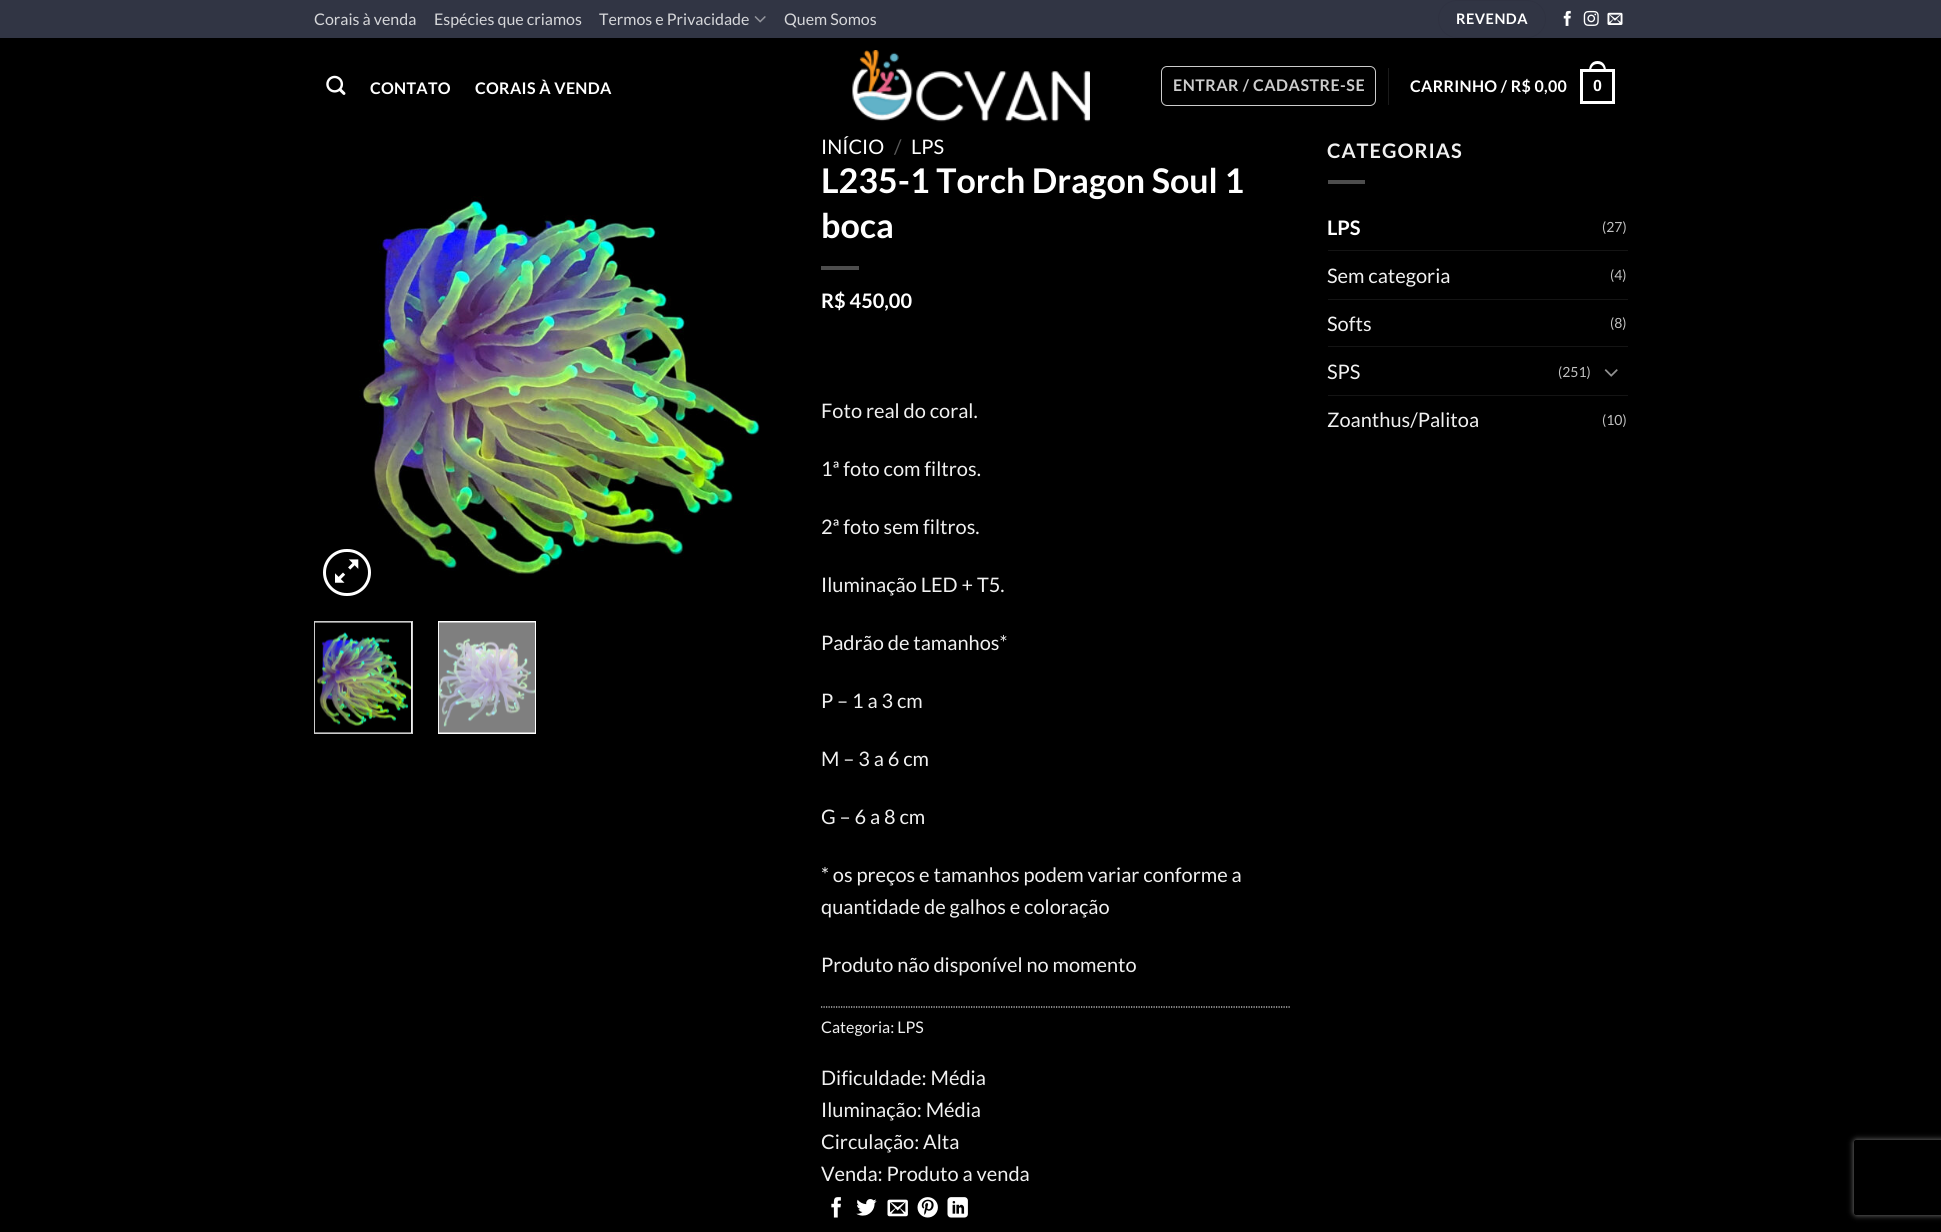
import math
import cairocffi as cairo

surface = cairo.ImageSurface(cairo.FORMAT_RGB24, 1941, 1232)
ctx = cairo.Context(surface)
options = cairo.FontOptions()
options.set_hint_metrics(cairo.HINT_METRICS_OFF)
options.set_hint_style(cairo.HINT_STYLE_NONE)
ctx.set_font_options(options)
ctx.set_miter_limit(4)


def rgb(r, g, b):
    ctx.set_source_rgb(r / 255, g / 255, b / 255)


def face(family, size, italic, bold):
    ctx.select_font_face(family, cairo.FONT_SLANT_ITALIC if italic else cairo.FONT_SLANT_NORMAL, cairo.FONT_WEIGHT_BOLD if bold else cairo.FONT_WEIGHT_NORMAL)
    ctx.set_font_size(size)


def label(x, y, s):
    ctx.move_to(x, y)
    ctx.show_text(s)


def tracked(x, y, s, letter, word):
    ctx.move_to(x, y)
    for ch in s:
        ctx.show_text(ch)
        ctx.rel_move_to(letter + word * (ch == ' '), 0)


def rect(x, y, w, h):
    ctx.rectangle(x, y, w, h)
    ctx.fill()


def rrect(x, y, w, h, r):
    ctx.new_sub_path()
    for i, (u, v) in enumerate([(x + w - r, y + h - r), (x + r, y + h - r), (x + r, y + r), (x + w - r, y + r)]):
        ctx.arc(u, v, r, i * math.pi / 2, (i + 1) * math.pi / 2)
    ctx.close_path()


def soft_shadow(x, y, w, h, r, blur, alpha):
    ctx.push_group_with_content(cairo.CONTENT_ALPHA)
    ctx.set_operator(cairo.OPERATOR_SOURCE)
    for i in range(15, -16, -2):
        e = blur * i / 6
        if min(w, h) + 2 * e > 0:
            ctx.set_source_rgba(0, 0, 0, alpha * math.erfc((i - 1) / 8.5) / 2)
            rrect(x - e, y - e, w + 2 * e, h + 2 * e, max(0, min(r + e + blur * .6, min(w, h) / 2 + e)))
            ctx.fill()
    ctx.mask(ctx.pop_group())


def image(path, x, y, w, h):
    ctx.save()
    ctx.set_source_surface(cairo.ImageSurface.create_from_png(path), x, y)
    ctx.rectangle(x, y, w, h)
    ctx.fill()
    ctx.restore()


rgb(0, 0, 0)
ctx.paint()
rgb(49, 53, 68)
rect(0, 0, 1941, 38)
face('Lato', 16, 0, 0)
rgb(214, 215, 218)
label(314, 25, 'Corais à venda')
label(434, 25, 'Espécies que criamos')
label(599, 25, 'Termos e Privacidade')
image('image0.png', 754, 16, 12, 7)
label(784, 25, 'Quem Somos')
rrect(1438.5, 0.5, 107, 37, 18.5)
rgb(47, 50, 65)
ctx.set_line_width(1)
ctx.stroke()
face('Lato', 14.5, 0, 1)
rgb(255, 255, 255)
tracked(1456, 24, 'REVENDA', 0.5, 0)
image('image1.png', 1563, 10, 8, 16)
image('image2.png', 1583, 10, 16, 16)
image('image3.png', 1607, 12, 16, 13)
image('image4.png', 326, 75, 20, 20)
face('Lato', 16, 0, 1)
tracked(370, 94, 'CONTATO', 0.3, 0)
tracked(475, 94, 'CORAIS À VENDA', 0.3, 0)
image('image5.png', 852, 50, 238, 72)
rrect(1161.5, 66.5, 214, 39, 5.5)
rgb(204, 204, 204)
ctx.stroke()
tracked(1173, 91, 'ENTRAR / CADASTRE-SE', 0.5, 0)
rgb(26, 26, 26)
rect(1388, 68, 1, 37)
rgb(255, 255, 255)
tracked(1410, 92, 'CARRINHO / R$ 0,00', 0.3, 0)
ctx.rectangle(1581.5, 70.5, 32, 32)
ctx.set_line_width(3)
ctx.stroke()
ctx.set_fill_rule(cairo.FILL_RULE_EVEN_ODD)
ctx.new_path()
ctx.move_to(1597.5, 61)
ctx.curve_to(1603.5, 61, 1606, 66, 1606, 71)
ctx.line_to(1589, 71)
ctx.curve_to(1589, 66, 1591.5, 61, 1597.5, 61)
ctx.close_path()
ctx.move_to(1597.5, 64)
ctx.curve_to(1602, 64, 1604, 67.5, 1604, 71)
ctx.line_to(1591, 71)
ctx.curve_to(1591, 67.5, 1593, 64, 1597.5, 64)
ctx.close_path()
ctx.fill()
face('Liberation Sans', 16, 0, 1)
tracked(1593, 91, '0', 0.3, 0)
image('image7.png', 359, 196, 401, 381)
rrect(324.5, 550.5, 45, 44, 22)
ctx.stroke()
image('image6.png', 335, 559, 24, 24)
ctx.rectangle(314.5, 621.5, 98, 112)
ctx.fill_preserve()
rgb(204, 204, 204)
ctx.set_line_width(1)
ctx.stroke()
image('image8.png', 315, 622, 97, 111)
rgb(255, 255, 255)
rect(438, 621, 98, 113)
image('image9.png', 438, 622, 97, 111)
face('Lato', 20, 0, 0)
label(821, 154, 'INÍCIO')
rgb(89, 89, 89)
label(894, 154, '/')
rgb(255, 255, 255)
label(911, 154, 'LPS')
face('Lato', 34, 0, 1)
label(821, 193, 'L235-1 Torch Dragon Soul 1')
label(821, 238, 'boca')
rgb(77, 77, 77)
rect(821, 266, 38, 4)
face('Lato', 20, 0, 1)
rgb(255, 255, 255)
label(821, 308, 'R$ 450,00')
face('Lato', 20, 0, 0)
rgb(241, 241, 241)
label(821, 418, 'Foto real do coral.')
label(821, 476, '1ª foto com filtros.')
label(821, 534, '2ª foto sem filtros.')
label(821, 592, 'Iluminação LED + T5.')
label(821, 650, 'Padrão de tamanhos*')
label(821, 708, 'P – 1 a 3 cm')
label(821, 766, 'M – 3 a 6 cm')
label(821, 824, 'G – 6 a 8 cm')
label(821, 882, '* os preços e tamanhos podem variar conforme a')
label(821, 914, 'quantidade de galhos e coloração')
label(821, 972, 'Produto não disponível no momento')
ctx.new_path()
ctx.move_to(821, 1007)
ctx.line_to(1290, 1007)
rgb(221, 221, 221)
ctx.set_line_width(1.2)
ctx.set_dash([1.25, 1.25])
ctx.stroke()
face('Lato', 16, 0, 0)
rgb(241, 241, 241)
label(821, 1033, 'Categoria: LPS')
face('Lato', 20, 0, 0)
label(821, 1085, 'Dificuldade: Média')
label(821, 1117, 'Iluminação: Média')
label(821, 1149, 'Circulação: Alta')
label(821, 1181, 'Venda: Produto a venda')
image('image10.png', 831, 1197, 10, 21)
image('image11.png', 856, 1199, 21, 17)
image('image12.png', 887, 1199, 21, 18)
image('image13.png', 917, 1197, 21, 21)
image('image14.png', 947, 1197, 21, 21)
face('Lato', 20, 0, 1)
tracked(1327, 158, 'CATEGORIAS', 1, 0)
rgb(77, 77, 77)
rect(1328, 180, 37, 4)
rgb(255, 255, 255)
label(1327, 235, 'LPS')
face('Lato', 14, 0, 0)
rgb(193, 193, 193)
label(1602, 232, '(27)')
rgb(20, 20, 20)
rect(1328, 250, 300, 1)
face('Lato', 20, 0, 0)
rgb(241, 241, 241)
label(1327, 283, 'Sem categoria')
face('Lato', 14, 0, 0)
rgb(193, 193, 193)
label(1610, 280, '(4)')
rgb(20, 20, 20)
rect(1328, 299, 300, 1)
face('Lato', 20, 0, 0)
rgb(241, 241, 241)
label(1327, 331, 'Softs')
face('Lato', 14, 0, 0)
rgb(193, 193, 193)
label(1610, 328, '(8)')
rgb(20, 20, 20)
rect(1328, 346, 300, 1)
face('Lato', 20, 0, 0)
rgb(241, 241, 241)
label(1327, 379, 'SPS')
face('Lato', 14, 0, 0)
rgb(193, 193, 193)
label(1558, 377, '(251)')
image('image15.png', 1604, 369, 14, 8)
rgb(20, 20, 20)
rect(1328, 395, 300, 1)
face('Lato', 20, 0, 0)
rgb(241, 241, 241)
label(1327, 427, 'Zoanthus/Palitoa')
face('Lato', 14, 0, 0)
rgb(193, 193, 193)
label(1602, 425, '(10)')
ctx.save()
ctx.new_path()
ctx.move_to(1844, 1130)
ctx.line_to(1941, 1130)
ctx.line_to(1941, 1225)
ctx.line_to(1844, 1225)
ctx.close_path()
ctx.move_to(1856.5, 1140)
ctx.line_to(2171.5, 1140)
ctx.curve_to(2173, 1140, 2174, 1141, 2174, 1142.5)
ctx.line_to(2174, 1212.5)
ctx.curve_to(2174, 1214, 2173, 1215, 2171.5, 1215)
ctx.line_to(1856.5, 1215)
ctx.curve_to(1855, 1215, 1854, 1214, 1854, 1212.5)
ctx.line_to(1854, 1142.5)
ctx.curve_to(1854, 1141, 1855, 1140, 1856.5, 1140)
ctx.close_path()
ctx.clip()
rgb(128, 128, 128)
soft_shadow(1854, 1140, 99, 75, 2.5, 3, 1)
ctx.restore()
surface.write_to_png('render.png')
